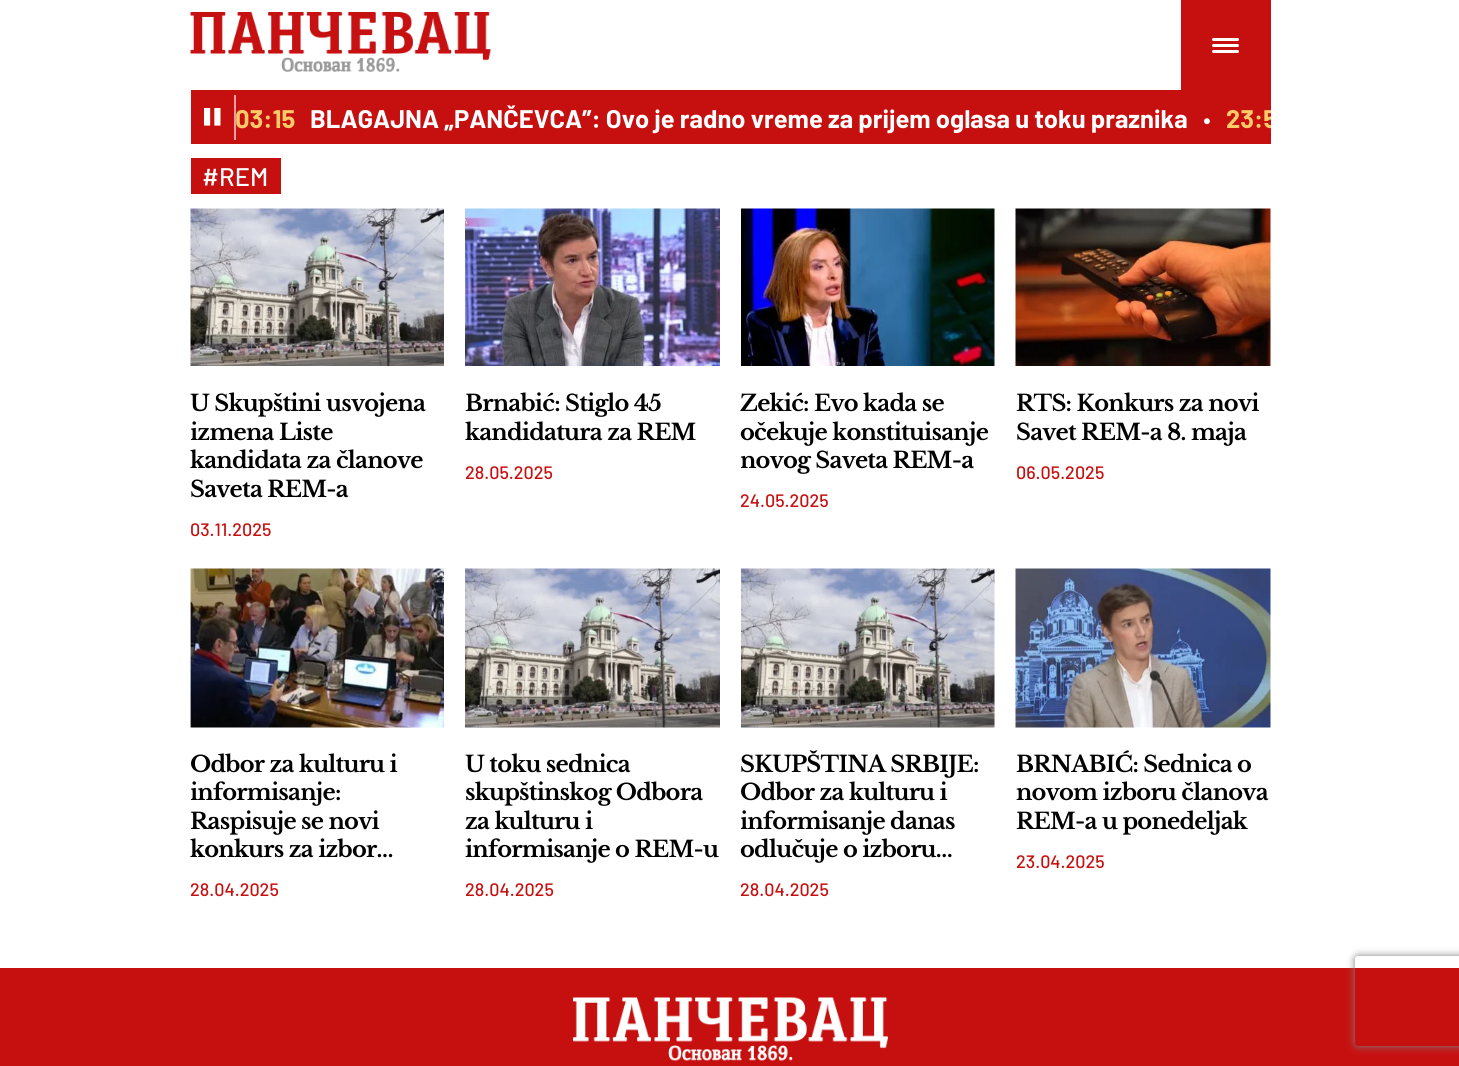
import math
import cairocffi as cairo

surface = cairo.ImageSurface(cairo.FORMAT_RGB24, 1459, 1066)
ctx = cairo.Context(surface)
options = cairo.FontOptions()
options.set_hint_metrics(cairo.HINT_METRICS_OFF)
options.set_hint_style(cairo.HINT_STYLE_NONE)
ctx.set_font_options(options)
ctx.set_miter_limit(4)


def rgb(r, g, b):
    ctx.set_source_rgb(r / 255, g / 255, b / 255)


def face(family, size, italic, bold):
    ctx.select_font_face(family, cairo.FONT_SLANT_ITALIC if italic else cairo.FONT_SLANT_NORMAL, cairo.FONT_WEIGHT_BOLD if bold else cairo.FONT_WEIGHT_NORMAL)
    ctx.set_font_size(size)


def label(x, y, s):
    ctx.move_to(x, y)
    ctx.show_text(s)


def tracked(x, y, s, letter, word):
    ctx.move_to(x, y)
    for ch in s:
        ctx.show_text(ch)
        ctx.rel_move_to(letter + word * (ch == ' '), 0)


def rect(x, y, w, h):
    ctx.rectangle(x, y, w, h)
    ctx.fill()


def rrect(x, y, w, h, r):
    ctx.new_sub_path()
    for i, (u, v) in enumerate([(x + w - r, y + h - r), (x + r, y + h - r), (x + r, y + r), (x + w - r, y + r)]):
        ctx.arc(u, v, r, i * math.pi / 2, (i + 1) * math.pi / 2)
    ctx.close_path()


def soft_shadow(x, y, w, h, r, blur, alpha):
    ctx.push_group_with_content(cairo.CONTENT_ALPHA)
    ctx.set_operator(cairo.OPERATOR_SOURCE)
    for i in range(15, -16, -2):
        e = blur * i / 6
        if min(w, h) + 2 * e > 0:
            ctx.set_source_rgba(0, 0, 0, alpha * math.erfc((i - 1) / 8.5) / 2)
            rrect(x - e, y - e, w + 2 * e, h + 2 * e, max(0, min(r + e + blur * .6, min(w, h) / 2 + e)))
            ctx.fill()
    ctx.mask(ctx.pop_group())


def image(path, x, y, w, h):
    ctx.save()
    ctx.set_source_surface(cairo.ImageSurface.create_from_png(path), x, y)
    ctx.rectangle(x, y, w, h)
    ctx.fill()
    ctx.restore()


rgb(255, 255, 255)
ctx.paint()
image('image0.png', 190, 12, 301, 60)
rgb(198, 16, 16)
rect(1181, 0, 90, 90)
rgb(255, 255, 255)
rrect(1212, 38, 27, 3, 1.5)
ctx.fill()
rrect(1212, 44, 27, 3, 1.5)
ctx.fill()
rrect(1212, 50, 27, 3, 1.5)
ctx.fill()
rgb(198, 16, 16)
rect(191, 90, 1080, 54)
image('image1.png', 204, 108, 17, 18)
rgb(232, 159, 159)
rect(234, 95, 2, 45)
ctx.save()
ctx.rectangle(236, 90, 1035, 54)
ctx.clip()
face('Barlow', 25.5, 0, 1)
rgb(255, 203, 105)
label(235, 128, '03:15')
ctx.restore()
face('Barlow', 25.5, 0, 1)
rgb(255, 255, 255)
label(310, 128, 'BLAGAJNA „PANČEVCA”: Ovo je radno vreme za prijem oglasa u toku praznika')
face('Barlow', 25.5, 0, 0)
label(1203, 128, '•')
ctx.save()
ctx.rectangle(236, 90, 1035, 54)
ctx.clip()
face('Barlow', 25.5, 0, 1)
rgb(255, 203, 105)
label(1226, 128, '23:5')
ctx.restore()
rgb(198, 16, 16)
rect(191, 158, 90, 36)
face('Barlow Medium', 25.5, 0, 0)
rgb(255, 255, 255)
label(202, 186, '#REM')
image('image2.png', 190, 208, 254, 158)
face('Libre Baskerville', 22.5, 0, 1)
rgb(0, 0, 0)
tracked(190, 411, 'U Skupštini usvojena', -0.75, 0)
ctx.save()
ctx.rectangle(191, 389, 253, 114)
ctx.clip()
tracked(190, 440, 'izmena Liste', -0.75, 0)
ctx.restore()
tracked(190, 468, 'kandidata za članove', -0.75, 0)
tracked(190, 497, 'Saveta REM-a', -0.75, 0)
face('Barlow Medium', 18, 0, 0)
rgb(198, 16, 16)
label(190, 536, '03.11.2025')
image('image3.png', 465, 208, 255, 158)
face('Libre Baskerville', 22.5, 0, 1)
rgb(0, 0, 0)
tracked(465, 411, 'Brnabić: Stiglo 45', -0.75, 0)
tracked(465, 440, 'kandidatura za REM', -0.75, 0)
face('Barlow Medium', 18, 0, 0)
rgb(198, 16, 16)
label(465, 479, '28.05.2025')
image('image4.png', 741, 208, 254, 158)
face('Libre Baskerville', 22.5, 0, 1)
rgb(0, 0, 0)
tracked(740, 411, 'Zekić: Evo kada se', -0.75, 0)
tracked(740, 440, 'očekuje konstituisanje', -0.75, 0)
ctx.save()
ctx.rectangle(741, 389, 254, 85)
ctx.clip()
tracked(740, 468, 'novog Saveta REM-a', -0.75, 0)
ctx.restore()
face('Barlow Medium', 18, 0, 0)
rgb(198, 16, 16)
label(740, 507, '24.05.2025')
image('image5.png', 1015, 208, 256, 158)
face('Libre Baskerville', 22.5, 0, 1)
rgb(0, 0, 0)
tracked(1016, 411, 'RTS: Konkurs za novi', -0.75, 0)
tracked(1016, 440, 'Savet REM-a 8. maja', -0.75, 0)
face('Barlow Medium', 18, 0, 0)
rgb(198, 16, 16)
label(1016, 479, '06.05.2025')
image('image6.png', 190, 568, 254, 160)
ctx.save()
ctx.rectangle(191, 750, 253, 114)
ctx.clip()
face('Libre Baskerville', 22.5, 0, 1)
rgb(0, 0, 0)
tracked(190, 772, 'Odbor za kulturu i', -0.75, 0)
tracked(190, 800, 'informisanje:', -0.75, 0)
tracked(190, 829, 'Raspisuje se novi', -0.75, 0)
ctx.restore()
face('Libre Baskerville', 22.5, 0, 1)
rgb(0, 0, 0)
tracked(190, 857, 'konkurs za izbor…', -0.75, 0)
face('Barlow Medium', 18, 0, 0)
rgb(198, 16, 16)
label(190, 896, '28.04.2025')
image('image7.png', 465, 568, 255, 160)
face('Libre Baskerville', 22.5, 0, 1)
rgb(0, 0, 0)
tracked(465, 772, 'U toku sednica', -0.75, 0)
tracked(465, 800, 'skupštinskog Odbora', -0.75, 0)
tracked(465, 829, 'za kulturu i', -0.75, 0)
tracked(465, 857, 'informisanje o REM-u', -0.75, 0)
face('Barlow Medium', 18, 0, 0)
rgb(198, 16, 16)
label(465, 896, '28.04.2025')
image('image8.png', 741, 568, 254, 160)
face('Libre Baskerville', 22.5, 0, 1)
rgb(0, 0, 0)
tracked(740, 772, 'SKUPŠTINA SRBIJE:', -0.75, 0)
tracked(740, 800, 'Odbor za kulturu i', -0.75, 0)
ctx.save()
ctx.rectangle(741, 750, 254, 114)
ctx.clip()
tracked(740, 829, 'informisanje danas', -0.75, 0)
ctx.restore()
tracked(740, 857, 'odlučuje o izboru…', -0.75, 0)
face('Barlow Medium', 18, 0, 0)
rgb(198, 16, 16)
label(740, 896, '28.04.2025')
image('image9.png', 1015, 568, 256, 160)
face('Libre Baskerville', 22.5, 0, 1)
rgb(0, 0, 0)
tracked(1016, 772, 'BRNABIĆ: Sednica o', -0.75, 0)
tracked(1016, 800, 'novom izboru članova', -0.75, 0)
tracked(1016, 829, 'REM-a u ponedeljak', -0.75, 0)
face('Barlow Medium', 18, 0, 0)
rgb(198, 16, 16)
label(1016, 868, '23.04.2025')
rect(0, 968, 1459, 98)
ctx.save()
ctx.set_fill_rule(cairo.FILL_RULE_EVEN_ODD)
ctx.new_path()
ctx.move_to(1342, 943)
ctx.line_to(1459, 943)
ctx.line_to(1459, 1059)
ctx.line_to(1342, 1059)
ctx.close_path()
ctx.move_to(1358, 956)
ctx.line_to(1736, 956)
ctx.curve_to(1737.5, 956, 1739, 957.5, 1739, 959)
ctx.line_to(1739, 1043)
ctx.curve_to(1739, 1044.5, 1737.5, 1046, 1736, 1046)
ctx.line_to(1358, 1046)
ctx.curve_to(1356.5, 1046, 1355, 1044.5, 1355, 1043)
ctx.line_to(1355, 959)
ctx.curve_to(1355, 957.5, 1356.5, 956, 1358, 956)
ctx.close_path()
ctx.clip()
rgb(128, 128, 128)
soft_shadow(1355, 956, 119, 90, 3, 4, 1)
ctx.restore()
image('image10.png', 573, 997, 315, 64)
surface.write_to_png('render.png')
